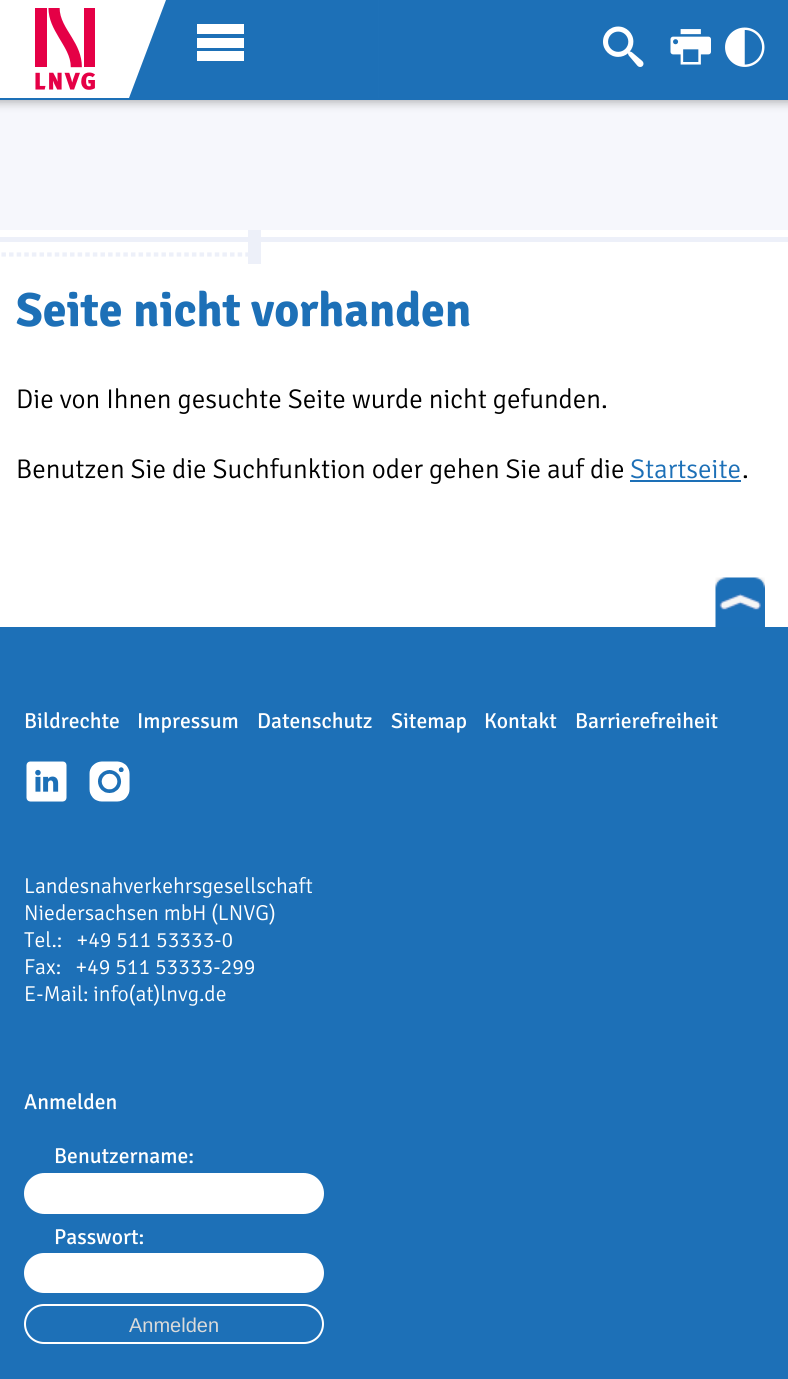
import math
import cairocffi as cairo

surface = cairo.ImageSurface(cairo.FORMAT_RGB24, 788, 1379)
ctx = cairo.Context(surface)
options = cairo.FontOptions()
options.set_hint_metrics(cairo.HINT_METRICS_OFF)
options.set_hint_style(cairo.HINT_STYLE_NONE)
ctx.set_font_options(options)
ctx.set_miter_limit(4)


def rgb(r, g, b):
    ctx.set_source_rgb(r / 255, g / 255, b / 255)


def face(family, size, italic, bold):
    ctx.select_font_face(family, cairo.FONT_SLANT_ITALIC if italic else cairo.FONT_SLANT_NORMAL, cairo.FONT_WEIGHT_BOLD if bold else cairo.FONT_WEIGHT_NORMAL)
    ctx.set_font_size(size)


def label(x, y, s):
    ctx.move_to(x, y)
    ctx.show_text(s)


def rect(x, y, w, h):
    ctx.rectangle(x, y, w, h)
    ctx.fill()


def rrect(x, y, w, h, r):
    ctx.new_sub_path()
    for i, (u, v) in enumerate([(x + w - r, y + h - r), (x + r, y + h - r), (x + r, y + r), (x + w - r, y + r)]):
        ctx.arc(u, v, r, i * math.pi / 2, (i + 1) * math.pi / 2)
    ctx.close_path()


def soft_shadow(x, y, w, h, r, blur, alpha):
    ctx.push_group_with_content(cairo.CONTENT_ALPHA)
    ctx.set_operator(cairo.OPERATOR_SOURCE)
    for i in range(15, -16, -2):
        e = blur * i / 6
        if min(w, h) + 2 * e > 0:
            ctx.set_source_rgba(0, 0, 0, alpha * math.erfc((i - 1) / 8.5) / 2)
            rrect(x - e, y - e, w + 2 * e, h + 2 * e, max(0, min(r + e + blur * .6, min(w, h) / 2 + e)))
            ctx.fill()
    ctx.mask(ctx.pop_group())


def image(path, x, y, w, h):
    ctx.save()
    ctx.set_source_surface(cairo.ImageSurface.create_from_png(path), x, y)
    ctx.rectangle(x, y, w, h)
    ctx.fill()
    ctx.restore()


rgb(255, 255, 255)
ctx.paint()
rgb(246, 247, 252)
rect(0, 100, 788, 130)
rgb(0, 0, 0)
soft_shadow(-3, -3, 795, 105, 0, 5, 0.3)
gradient = cairo.LinearGradient(0, 49, 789, 49)
gradient.add_color_stop_rgba(0, 1, 1, 1, 1)
gradient.add_color_stop_rgba(0.43, 1, 1, 1, 1)
gradient.add_color_stop_rgba(0.48, 0.114, 0.439, 0.718, 1)
gradient.add_color_stop_rgba(1, 0.114, 0.439, 0.718, 1)
ctx.set_source(gradient)
rect(0, 0, 788, 98)
rgb(29, 112, 183)
rect(0, 98, 788, 2)
rect(129, 0, 249, 98)
image('image0.png', 35, 8, 60, 82)
rgb(255, 255, 255)
ctx.new_path()
ctx.move_to(129, 0)
ctx.line_to(166, 0)
ctx.line_to(129, 98)
ctx.close_path()
ctx.fill()
ctx.new_path()
ctx.move_to(197, 24)
ctx.line_to(244, 24)
ctx.line_to(244, 34)
ctx.line_to(197, 34)
ctx.close_path()
ctx.move_to(197, 38)
ctx.line_to(244, 38)
ctx.line_to(244, 48)
ctx.line_to(197, 48)
ctx.close_path()
ctx.move_to(197, 51)
ctx.line_to(244, 51)
ctx.line_to(244, 61)
ctx.line_to(197, 61)
ctx.close_path()
ctx.fill()
image('image1.png', 603, 26, 41, 41)
image('image2.png', 670, 29, 41, 36)
image('image3.png', 725, 27, 40, 40)
rgb(237, 240, 249)
rect(0, 237, 788, 5)
rect(248, 230, 13, 34)
ctx.new_path()
ctx.move_to(-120.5, 254.5)
ctx.line_to(255, 254.5)
ctx.set_line_width(4.2)
ctx.set_dash([4.5, 3.12])
ctx.stroke()
face('Signika', 48, 0, 1)
rgb(29, 112, 183)
label(16, 326, 'Seite nicht vorhanden')
face('Signika Light', 27, 0, 0)
rgb(0, 0, 0)
label(16, 408, 'Die von Ihnen gesuchte Seite wurde nicht gefunden.')
label(16, 478, 'Benutzen Sie die Suchfunktion oder gehen Sie auf die')
rgb(29, 112, 183)
label(630, 478, 'Startseite')
rect(630, 480, 111, 2)
rgb(0, 0, 0)
label(742, 478, '.')
rgb(29, 112, 183)
rect(0, 627, 788, 752)
image('image4.png', 715, 577, 50, 50)
face('Signika', 21.6, 0, 0)
rgb(255, 255, 255)
label(24, 728, 'Bildrechte')
label(137, 728, 'Impressum')
label(257, 728, 'Datenschutz')
label(391, 728, 'Sitemap')
label(484, 728, 'Kontakt')
label(575, 728, 'Barrierefreiheit')
image('image5.png', 26, 761, 41, 41)
image('image6.png', 89, 761, 41, 41)
face('Signika Light', 21.6, 0, 0)
label(24, 893, 'Landesnahverkehrsgesellschaft')
label(24, 920, 'Niedersachsen mbH (LNVG)')
label(24, 947, 'Tel.:   +49 511 53333-0')
label(24, 974, 'Fax:   +49 511 53333-299')
label(24, 1001, 'E-Mail: info(at)lnvg.de')
face('Signika', 21.6, 0, 0)
label(24, 1109, 'Anmelden')
label(54, 1163, 'Benutzername:')
rrect(24, 1173, 300, 41, 20.5)
ctx.fill()
label(54, 1244, 'Passwort:')
rrect(24, 1253, 300, 40, 20)
ctx.fill()
rrect(25, 1305, 298, 38, 19)
ctx.set_line_width(2)
ctx.set_dash([])
ctx.stroke()
face('Liberation Sans', 20, 0, 0)
rgb(218, 218, 217)
label(129, 1332, 'Anmelden')
surface.write_to_png('render.png')
